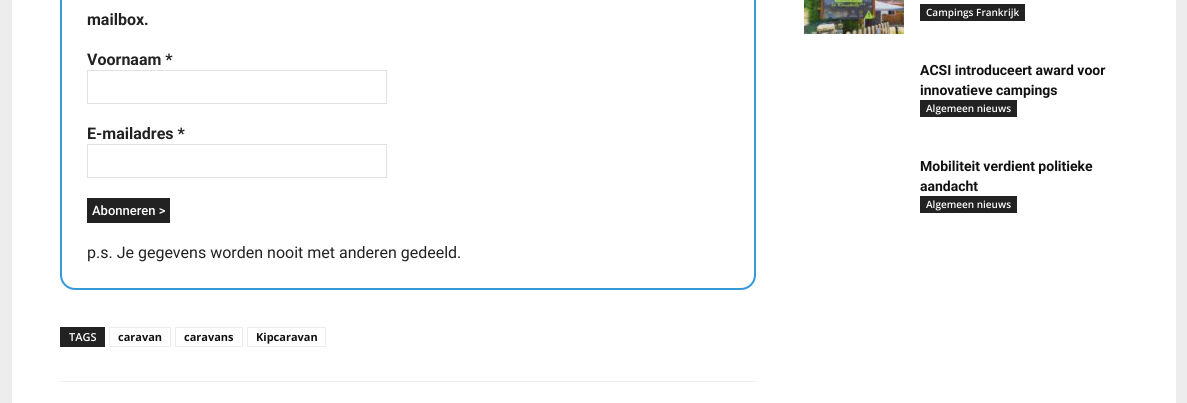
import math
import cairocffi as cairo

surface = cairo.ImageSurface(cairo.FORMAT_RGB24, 1187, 403)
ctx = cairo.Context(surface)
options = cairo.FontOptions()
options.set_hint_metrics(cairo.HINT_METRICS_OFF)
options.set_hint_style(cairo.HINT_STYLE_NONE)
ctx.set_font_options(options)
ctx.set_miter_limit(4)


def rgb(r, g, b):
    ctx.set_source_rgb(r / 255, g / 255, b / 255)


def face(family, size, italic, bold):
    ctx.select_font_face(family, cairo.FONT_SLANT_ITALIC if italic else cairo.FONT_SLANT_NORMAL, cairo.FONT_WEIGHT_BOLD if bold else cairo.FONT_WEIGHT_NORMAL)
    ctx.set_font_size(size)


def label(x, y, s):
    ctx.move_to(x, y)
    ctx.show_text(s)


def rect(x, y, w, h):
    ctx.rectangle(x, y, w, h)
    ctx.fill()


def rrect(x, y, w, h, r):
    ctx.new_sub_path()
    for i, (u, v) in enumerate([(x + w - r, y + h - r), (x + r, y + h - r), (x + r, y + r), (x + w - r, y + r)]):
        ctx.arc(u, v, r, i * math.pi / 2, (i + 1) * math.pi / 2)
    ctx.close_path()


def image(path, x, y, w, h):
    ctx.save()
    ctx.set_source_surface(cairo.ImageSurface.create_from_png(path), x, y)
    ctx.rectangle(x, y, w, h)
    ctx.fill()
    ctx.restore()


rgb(237, 237, 237)
ctx.paint()
rgb(255, 255, 255)
rect(12, 0, 1164, 403)
rrect(61, -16, 694, 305, 14)
rgb(52, 152, 219)
ctx.stroke()
face('Roboto', 16, 0, 1)
rgb(34, 34, 34)
label(87, 25, 'mailbox.')
label(87, 65, 'Voornaam *')
ctx.rectangle(87.5, 70.5, 299, 33)
rgb(225, 225, 225)
ctx.set_line_width(1)
ctx.stroke()
rgb(34, 34, 34)
label(87, 139, 'E-mailadres *')
ctx.rectangle(87.5, 144.5, 299, 33)
rgb(225, 225, 225)
ctx.stroke()
rgb(34, 34, 34)
rect(87, 198, 83, 25)
face('Roboto Medium', 13, 0, 0)
rgb(255, 255, 255)
label(92, 215, 'Abonneren >')
face('Roboto', 16, 0, 0)
rgb(34, 34, 34)
label(87, 258, 'p.s. Je gegevens worden nooit met anderen gedeeld.')
rect(60, 327, 45, 20)
face('Open Sans SemiBold', 11, 0, 0)
rgb(255, 255, 255)
label(69, 341, 'TAGS')
ctx.rectangle(109.5, 327.5, 61, 19)
rgb(237, 237, 237)
ctx.stroke()
face('Open Sans', 11, 0, 1)
rgb(17, 17, 17)
label(118, 341, 'caravan')
ctx.rectangle(175.5, 327.5, 67, 19)
rgb(237, 237, 237)
ctx.stroke()
rgb(17, 17, 17)
label(184, 341, 'caravans')
ctx.rectangle(247.5, 327.5, 78, 19)
rgb(237, 237, 237)
ctx.stroke()
rgb(17, 17, 17)
label(256, 341, 'Kipcaravan')
rgb(237, 237, 237)
rect(60, 381, 696, 1)
image('image0.png', 804, 0, 100, 34)
rgb(34, 34, 34)
rect(920, 4, 105, 17)
face('Open Sans SemiBold', 10, 0, 0)
rgb(255, 255, 255)
label(926, 16, 'Campings Frankrijk')
face('Roboto', 14, 0, 1)
rgb(17, 17, 17)
label(920, 75, 'ACSI introduceert award voor')
label(920, 95, 'innovatieve campings')
rgb(34, 34, 34)
rect(920, 100, 97, 17)
face('Open Sans SemiBold', 10, 0, 0)
rgb(255, 255, 255)
label(926, 112, 'Algemeen nieuws')
face('Roboto', 14, 0, 1)
rgb(17, 17, 17)
label(920, 171, 'Mobiliteit verdient politieke')
label(920, 191, 'aandacht')
rgb(34, 34, 34)
rect(920, 196, 97, 17)
face('Open Sans SemiBold', 10, 0, 0)
rgb(255, 255, 255)
label(926, 208, 'Algemeen nieuws')
surface.write_to_png('render.png')
